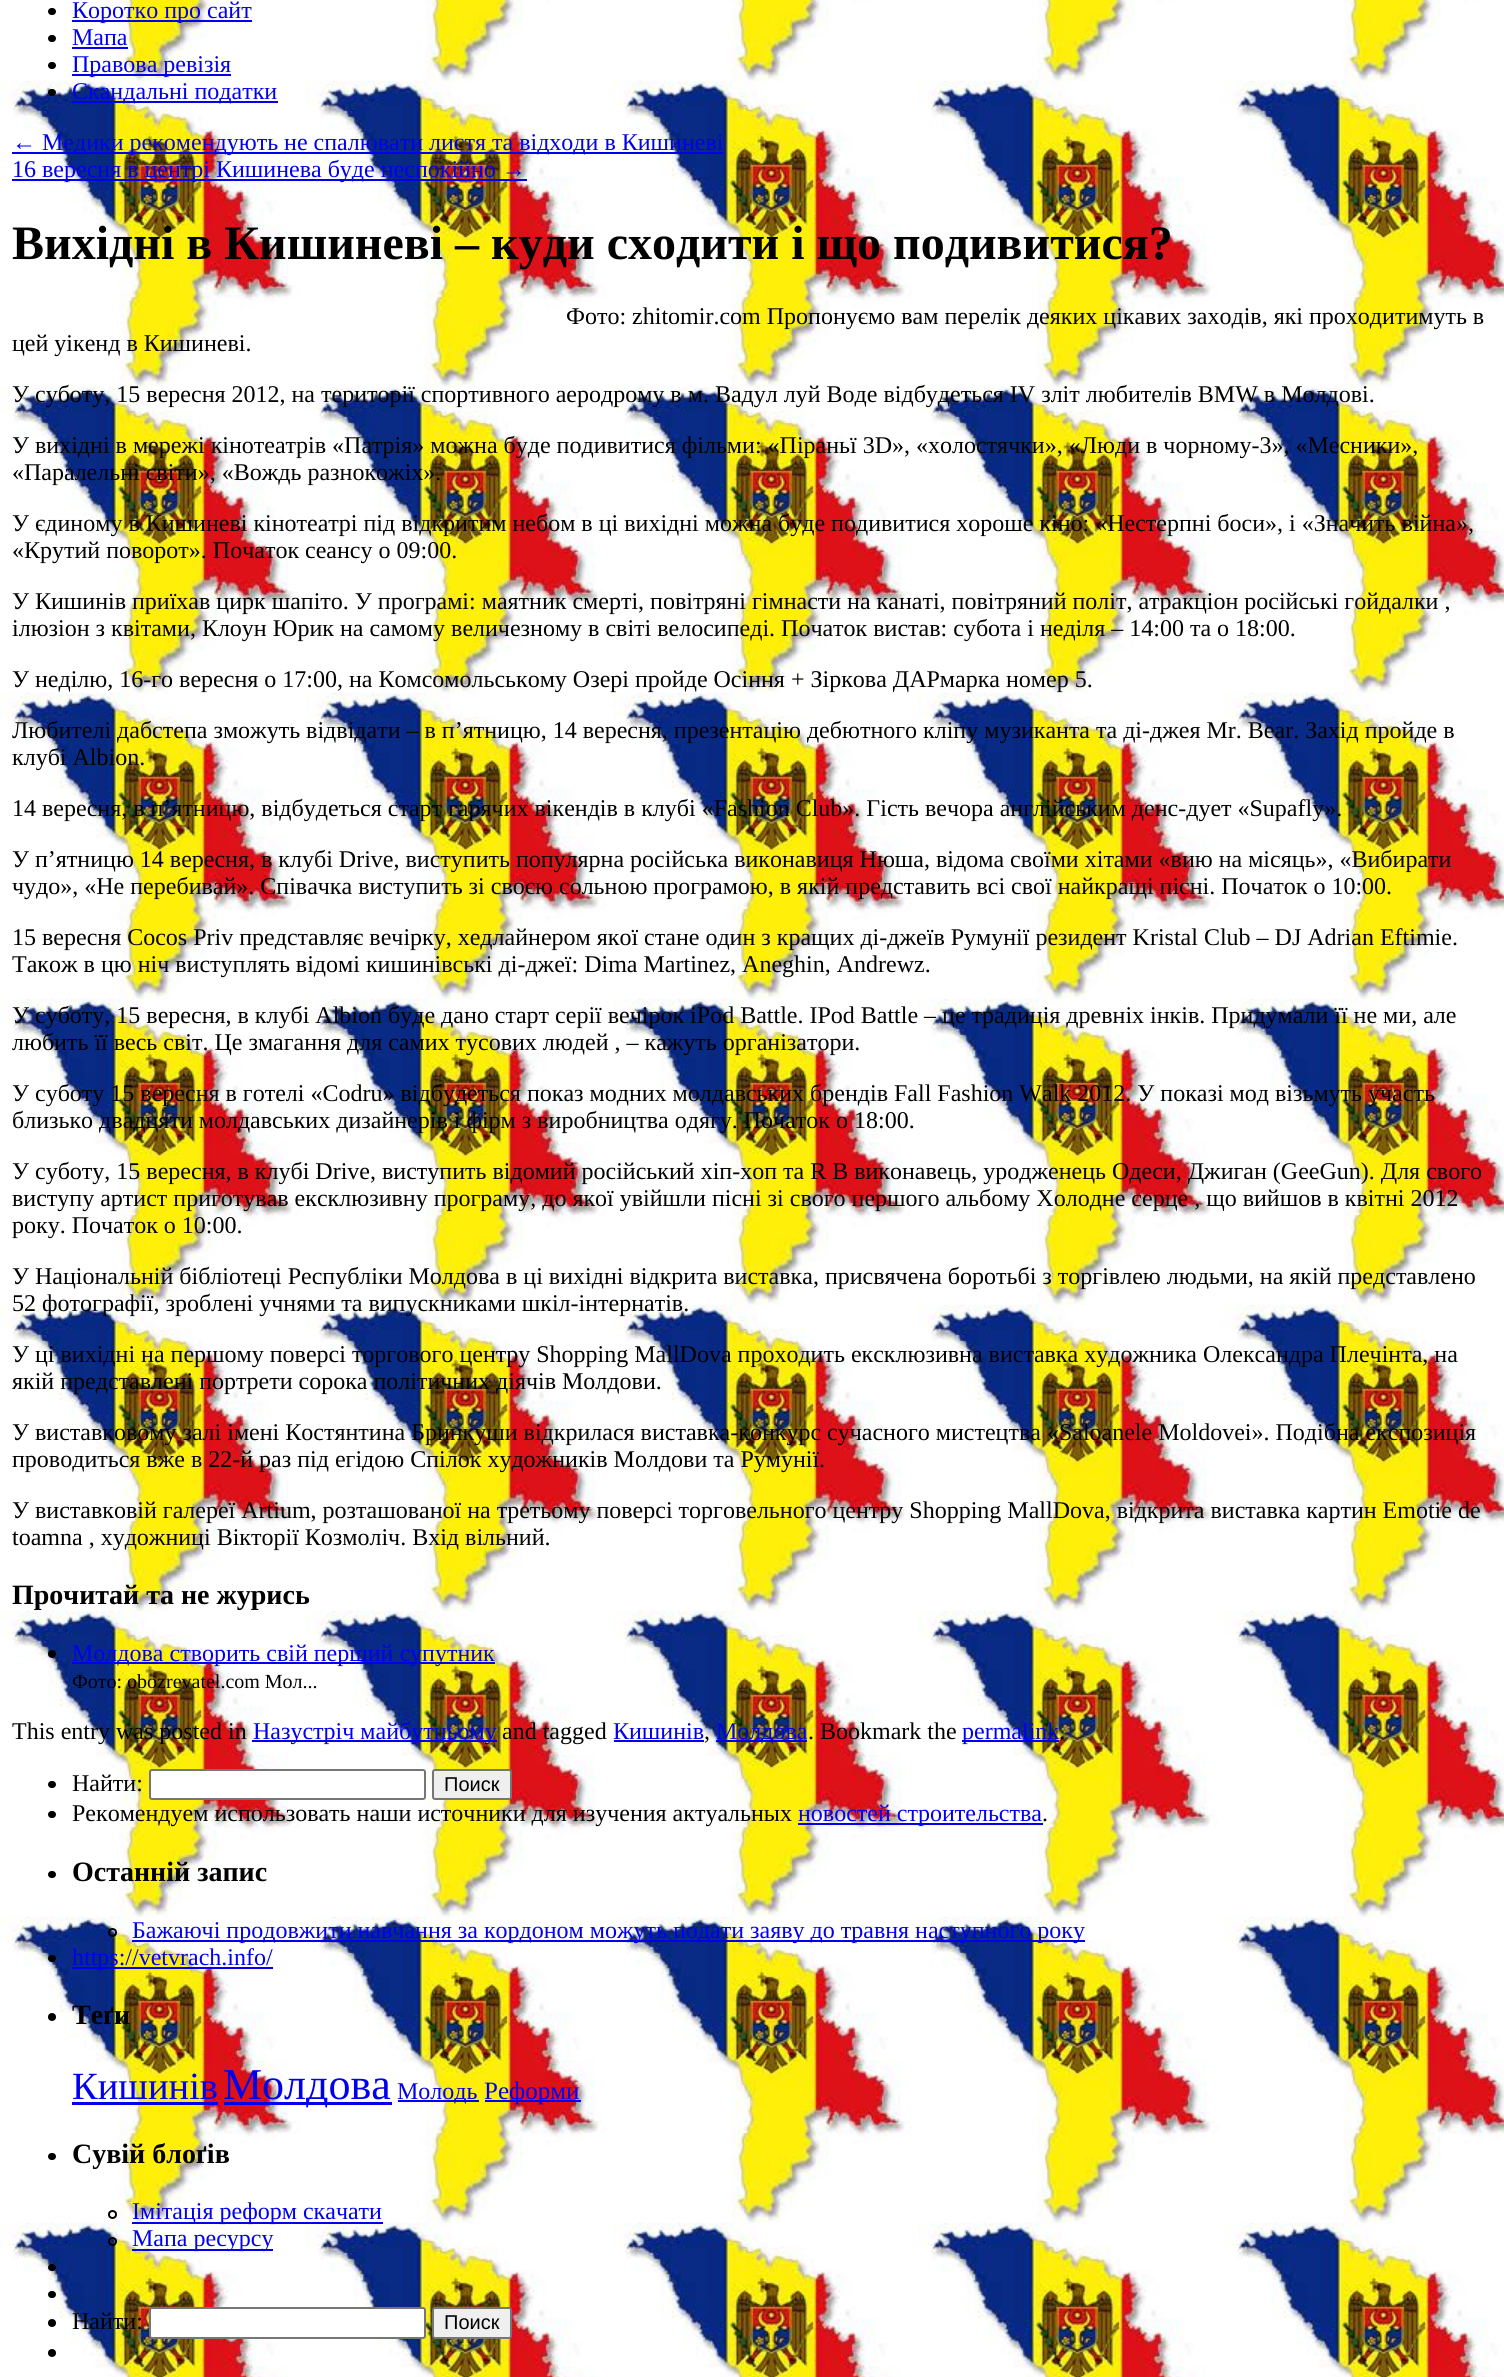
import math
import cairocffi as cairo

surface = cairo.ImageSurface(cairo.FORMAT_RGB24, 1504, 2377)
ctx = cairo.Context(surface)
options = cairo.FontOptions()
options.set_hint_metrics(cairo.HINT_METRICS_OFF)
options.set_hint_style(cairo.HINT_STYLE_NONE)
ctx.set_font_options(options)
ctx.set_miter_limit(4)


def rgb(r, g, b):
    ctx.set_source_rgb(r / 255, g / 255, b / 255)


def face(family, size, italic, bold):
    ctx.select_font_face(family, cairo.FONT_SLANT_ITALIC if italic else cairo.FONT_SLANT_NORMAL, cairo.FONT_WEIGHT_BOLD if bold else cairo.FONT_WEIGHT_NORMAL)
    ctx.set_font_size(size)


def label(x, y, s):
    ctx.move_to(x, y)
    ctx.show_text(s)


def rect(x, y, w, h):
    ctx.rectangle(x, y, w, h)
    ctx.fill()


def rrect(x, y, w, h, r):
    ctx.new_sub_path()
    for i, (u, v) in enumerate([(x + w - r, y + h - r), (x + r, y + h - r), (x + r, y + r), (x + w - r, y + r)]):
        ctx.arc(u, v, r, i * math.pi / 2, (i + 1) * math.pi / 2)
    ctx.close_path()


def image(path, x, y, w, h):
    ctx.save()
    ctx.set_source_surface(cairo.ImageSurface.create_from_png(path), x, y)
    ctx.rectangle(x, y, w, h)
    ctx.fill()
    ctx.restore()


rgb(255, 255, 255)
ctx.paint()
image('image0.png', 0, 0, 1504, 2377)
rgb(0, 0, 0)
rrect(48, 8, 8, 7, 3.5)
ctx.fill()
rgb(0, 0, 238)
rect(72, 20, 180, 2)
face('Liberation Serif', 24, 0, 0)
label(72, 18, 'Коротко про сайт')
rgb(0, 0, 0)
rrect(48, 35, 8, 7, 3.5)
ctx.fill()
rgb(0, 0, 238)
label(72, 45, 'Мапа')
rect(72, 47, 56, 2)
rgb(0, 0, 0)
rrect(48, 62, 8, 7, 3.5)
ctx.fill()
rgb(0, 0, 238)
rect(72, 74, 159, 2)
label(72, 72, 'Правова ревізія')
rgb(0, 0, 0)
rrect(48, 89, 8, 7, 3.5)
ctx.fill()
rgb(0, 0, 238)
rect(72, 101, 206, 2)
label(72, 99, 'Скандальні податки')
rect(12, 152, 711, 2)
label(12, 150, '← Медики рекомендують не спалювати листя та відходи в Кишиневі')
rect(12, 179, 515, 2)
label(12, 177, '16 вересня в центрі Кишинева буде неспокійно →')
face('Liberation Serif', 48, 0, 1)
rgb(0, 0, 0)
label(12, 259, 'Вихідні в Кишиневі – куди сходити і що подивитися?')
face('Liberation Serif', 24, 0, 0)
label(566, 324, 'Фото: zhitomir.com Пропонуємо вам перелік деяких цікавих заходів, які проходитимуть в')
label(12, 351, 'цей уікенд в Кишиневі.')
label(12, 402, 'У суботу, 15 вересня 2012, на території спортивного аеродрому в м. Вадул луй Воде відбудеться IV зліт любителів BMW в Молдові.')
label(12, 453, 'У вихідні в мережі кінотеатрів «Патрія» можна буде подивитися фільми: «Піраньї 3D», «холостячки», «Люди в чорному-3», «Месники»,')
label(12, 480, '«Паралельні світи», «Вождь разнокожіх».')
label(12, 531, 'У єдиному в Кишиневі кінотеатрі під відкритим небом в ці вихідні можна буде подивитися хороше кіно: «Нестерпні боси», і «Значить війна»,')
label(12, 558, '«Крутий поворот». Початок сеансу о 09:00.')
label(12, 609, 'У Кишинів приїхав цирк шапіто. У програмі: маятник смерті, повітряні гімнасти на канаті, повітряний політ, атракціон російські гойдалки ,')
label(12, 636, 'ілюзіон з квітами, Клоун Юрик на самому величезному в світі велосипеді. Початок вистав: субота і неділя – 14:00 та о 18:00.')
label(12, 687, 'У неділю, 16-го вересня о 17:00, на Комсомольському Озері пройде Осіння + Зіркова ДАРмарка номер 5.')
label(12, 738, 'Любителі дабстепа зможуть відвідати – в п’ятницю, 14 вересня, презентацію дебютного кліпу музиканта та ді-джея Mr. Bear. Захід пройде в')
label(12, 765, 'клубі Albion.')
label(12, 816, '14 вересня, в п’ятницю, відбудеться старт гарячих вікендів в клубі «Fashion Club». Гість вечора англійським денс-дует «Supafly».')
label(12, 867, 'У п’ятницю 14 вересня, в клубі Drive, виступить популярна російська виконавиця Нюша, відома своїми хітами «вию на місяць», «Вибирати')
label(12, 894, 'чудо», «Не перебивай». Співачка виступить зі своєю сольною програмою, в якій представить всі свої найкращі пісні. Початок о 10:00.')
label(12, 945, '15 вересня Cocos Priv представляє вечірку, хедлайнером якої стане один з кращих ді-джеїв Румунії резидент Kristal Club – DJ Adrian Eftimie.')
label(12, 972, 'Також в цю ніч виступлять відомі кишинівські ді-джеї: Dima Martinez, Aneghin, Andrewz.')
label(12, 1023, 'У суботу, 15 вересня, в клубі Albion буде дано старт серії вечірок iPod Battle. IPod Battle – це традиція древніх інків. Придумали її не ми, але')
label(12, 1050, 'любить її весь світ. Це змагання для самих тусових людей , – кажуть організатори.')
label(12, 1101, 'У суботу 15 вересня в готелі «Codru» відбудеться показ модних молдавських брендів Fall Fashion Walk 2012. У показі мод візьмуть участь')
label(12, 1128, 'близько двадцяти молдавських дизайнерів і фірм з виробництва одягу. Початок о 18:00.')
label(12, 1179, 'У суботу, 15 вересня, в клубі Drive, виступить відомий російський хіп-хоп та R B виконавець, уродженець Одеси, Джиган (GeeGun). Для свого')
label(12, 1206, 'виступу артист приготував ексклюзивну програму, до якої увійшли пісні зі свого першого альбому Холодне серце , що вийшов в квітні 2012')
label(12, 1233, 'року. Початок о 10:00.')
label(12, 1284, 'У Національній бібліотеці Республіки Молдова в ці вихідні відкрита виставка, присвячена боротьбі з торгівлею людьми, на якій представлено')
label(12, 1311, '52 фотографії, зроблені учнями та випускниками шкіл-інтернатів.')
label(12, 1362, 'У ці вихідні на першому поверсі торгового центру Shopping MallDova проходить ексклюзивна виставка художника Олександра Плечінта, на')
label(12, 1389, 'якій представлені портрети сорока політичних діячів Молдови.')
label(12, 1440, 'У виставковому залі імені Костянтина Бринкуши відкрилася виставка-конкурс сучасного мистецтва «Saloanele Moldovei». Подібна експозиція')
label(12, 1467, 'проводиться вже в 22-й раз під егідою Спілок художників Молдови та Румунії.')
label(12, 1518, 'У виставковій галереї Artium, розташованої на третьому поверсі торговельного центру Shopping MallDova, відкрита виставка картин Emotie de')
label(12, 1545, 'toamna , художниці Вікторії Козмоліч. Вхід вільний.')
face('Liberation Serif', 28, 0, 1)
label(12, 1604, 'Прочитай та не журись')
ctx.new_path()
ctx.arc(52, 1654, 4, 0, 2 * math.pi)
ctx.fill()
rgb(0, 0, 238)
rect(72, 1662, 423, 2)
face('Liberation Serif', 24, 0, 0)
label(72, 1661, 'Молдова створить свій перший супутник')
face('Liberation Serif', 20, 0, 0)
rgb(0, 0, 0)
label(72, 1688, 'Фото: obozrevatel.com Мол...')
face('Liberation Serif', 24, 0, 0)
label(12, 1739, 'This entry was posted in')
rgb(0, 0, 238)
rect(252, 1740, 245, 2)
label(253, 1739, 'Назустріч майбутньому')
rgb(0, 0, 0)
label(502, 1739, 'and tagged')
rgb(0, 0, 238)
label(613, 1739, 'Кишинів')
rect(614, 1740, 90, 2)
rgb(0, 0, 0)
label(704, 1739, ',')
rgb(0, 0, 238)
rect(716, 1740, 91, 2)
label(716, 1739, 'Молдова')
rgb(0, 0, 0)
label(808, 1739, '. Bookmark the')
rgb(0, 0, 238)
rect(962, 1740, 97, 2)
label(962, 1739, 'permalink')
rgb(0, 0, 0)
label(1059, 1739, '.')
rrect(48, 1781, 8, 7, 3.5)
ctx.fill()
label(72, 1791, 'Найти:')
rgb(255, 255, 255)
rrect(150, 1770, 275, 29, 2)
ctx.fill_preserve()
rgb(118, 118, 118)
ctx.stroke()
rgb(239, 239, 239)
rrect(433, 1770, 78, 29, 2)
ctx.fill_preserve()
rgb(118, 118, 118)
ctx.stroke()
face('Liberation Sans', 20, 0, 0)
rgb(0, 0, 0)
label(444, 1791, 'Поиск')
rrect(48, 1811, 8, 7, 3.5)
ctx.fill()
face('Liberation Serif', 24, 0, 0)
label(72, 1821, 'Рекомендуем использовать наши источники для изучения актуальных')
rgb(0, 0, 238)
rect(798, 1823, 245, 2)
label(798, 1821, 'новостей строительства')
rgb(0, 0, 0)
label(1042, 1821, '.')
rrect(48, 1871, 8, 7, 3.5)
ctx.fill()
face('Liberation Serif', 28, 0, 1)
label(72, 1881, 'Останній запис')
ctx.new_path()
ctx.arc(112.5, 1932.5, 3.5, 0, 2 * math.pi)
ctx.stroke()
rgb(0, 0, 238)
rect(132, 1940, 953, 2)
face('Liberation Serif', 24, 0, 0)
label(132, 1938, 'Бажаючі продовжити навчання за кордоном можуть подати заяву до травня наступного року')
rgb(0, 0, 0)
rrect(48, 1955, 8, 7, 3.5)
ctx.fill()
rgb(0, 0, 238)
rect(72, 1967, 201, 2)
label(72, 1965, 'https://vetvrach.info/')
rgb(0, 0, 0)
ctx.new_path()
ctx.arc(52, 2017, 4, 0, 2 * math.pi)
ctx.fill()
face('Liberation Serif', 28, 0, 1)
label(72, 2024, 'Теґи')
face('Liberation Serif', 38.5, 0, 0)
rgb(0, 0, 238)
label(72, 2099, 'Кишинів')
rect(72, 2102, 146, 3)
rect(224, 2102, 168, 3)
face('Liberation Serif', 44, 0, 0)
label(223, 2099, 'Молдова')
rect(398, 2100, 81, 2)
face('Liberation Serif', 24, 0, 0)
label(397, 2099, 'Молодь')
rect(485, 2100, 96, 2)
face('Liberation Serif', 25, 0, 0)
label(484, 2099, 'Реформи')
rgb(0, 0, 0)
rrect(48, 2153, 8, 7, 3.5)
ctx.fill()
face('Liberation Serif', 28, 0, 1)
label(72, 2163, 'Сувій блоґів')
ctx.new_path()
ctx.arc(112.5, 2214.5, 3.5, 0, 2 * math.pi)
ctx.stroke()
rgb(0, 0, 238)
rect(132, 2222, 251, 2)
face('Liberation Serif', 24, 0, 0)
label(132, 2219, 'Імітація реформ скачати')
ctx.new_path()
ctx.arc(112.5, 2241.5, 3.5, 0, 2 * math.pi)
rgb(0, 0, 0)
ctx.stroke()
rgb(0, 0, 238)
rect(132, 2249, 141, 2)
label(132, 2246, 'Мапа ресурсу')
rgb(0, 0, 0)
rrect(48, 2264, 8, 7, 3.5)
ctx.fill()
rrect(48, 2291, 8, 7, 3.5)
ctx.fill()
ctx.arc(52, 2323, 4, 0, 2 * math.pi)
ctx.fill()
label(72, 2329, 'Найти:')
rgb(255, 255, 255)
rrect(150, 2308, 275, 30, 2)
ctx.fill_preserve()
rgb(118, 118, 118)
ctx.stroke()
rgb(239, 239, 239)
rrect(433, 2308, 78, 30, 2)
ctx.fill_preserve()
rgb(118, 118, 118)
ctx.stroke()
face('Liberation Sans', 20, 0, 0)
rgb(0, 0, 0)
label(444, 2329, 'Поиск')
ctx.new_path()
ctx.arc(52, 2353, 4, 0, 2 * math.pi)
ctx.fill()
surface.write_to_png('render.png')
